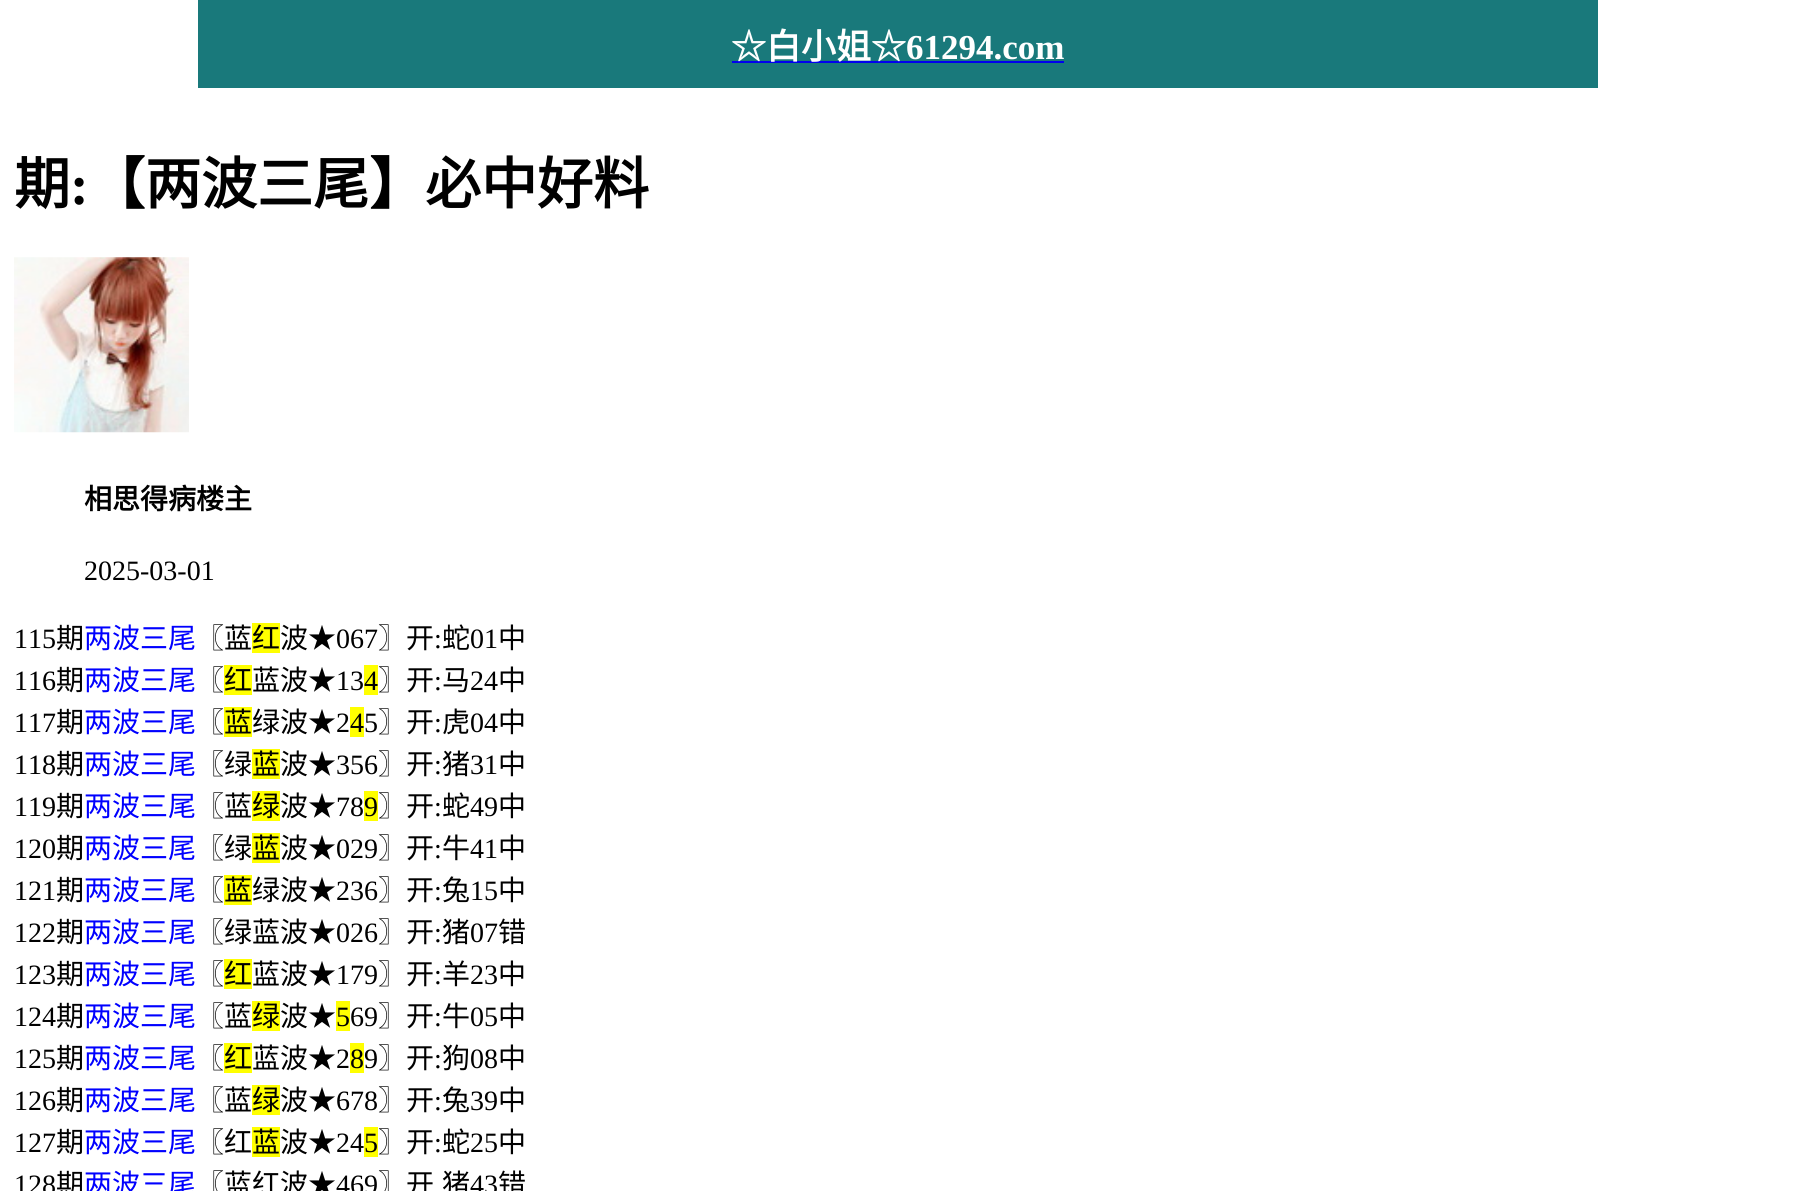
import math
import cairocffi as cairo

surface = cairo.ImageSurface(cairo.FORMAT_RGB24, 1794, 1191)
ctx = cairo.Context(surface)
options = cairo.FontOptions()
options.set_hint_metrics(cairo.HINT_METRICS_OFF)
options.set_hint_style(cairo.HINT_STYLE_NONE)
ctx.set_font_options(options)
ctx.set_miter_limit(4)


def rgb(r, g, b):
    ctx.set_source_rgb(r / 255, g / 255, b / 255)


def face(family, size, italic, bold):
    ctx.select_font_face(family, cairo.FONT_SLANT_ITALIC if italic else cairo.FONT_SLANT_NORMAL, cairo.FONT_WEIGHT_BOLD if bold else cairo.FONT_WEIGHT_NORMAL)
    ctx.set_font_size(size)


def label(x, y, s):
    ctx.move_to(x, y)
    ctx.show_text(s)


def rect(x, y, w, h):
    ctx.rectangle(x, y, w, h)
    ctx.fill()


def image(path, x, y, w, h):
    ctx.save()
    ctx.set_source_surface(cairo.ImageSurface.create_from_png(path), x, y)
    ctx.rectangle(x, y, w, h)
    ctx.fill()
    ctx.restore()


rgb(255, 255, 255)
ctx.paint()
rgb(25, 121, 123)
rect(198, 0, 1400, 88)
rgb(0, 0, 238)
rect(732, 61, 332, 2)
face('Noto Sans CJK SC', 35, 0, 1)
rgb(255, 255, 255)
label(731, 59, '☆白小姐☆')
face('Liberation Serif', 35, 0, 1)
label(906, 59, '61294.com')
face('Noto Sans CJK SC', 56, 0, 1)
rgb(0, 0, 0)
label(14, 204, '期')
face('Liberation Serif', 56, 0, 1)
label(70, 204, ':')
face('Noto Sans CJK SC', 56, 0, 1)
label(89, 204, '【两波三尾】必中好料')
image('image0.png', 14, 257, 175, 176)
face('Noto Sans CJK SC', 28, 0, 1)
label(84, 509, '相思得病楼主')
face('Liberation Serif', 28, 0, 0)
label(84, 580, '2025-03-01')
label(14, 648, '115')
face('Noto Sans CJK SC', 28, 0, 0)
label(56, 648, '期')
rgb(0, 0, 255)
label(84, 648, '两波三尾')
rgb(0, 0, 0)
label(196, 648, '〖蓝')
rgb(255, 255, 0)
rect(252, 623, 28, 30)
rgb(0, 0, 0)
label(252, 648, '红波★')
face('Liberation Serif', 28, 0, 0)
label(336, 648, '067')
face('Noto Sans CJK SC', 28, 0, 0)
label(378, 648, '〗开')
face('Liberation Serif', 28, 0, 0)
label(434, 648, ':')
face('Noto Sans CJK SC', 28, 0, 0)
label(442, 648, '蛇')
face('Liberation Serif', 28, 0, 0)
label(470, 648, '01')
face('Noto Sans CJK SC', 28, 0, 0)
label(498, 648, '中')
face('Liberation Serif', 28, 0, 0)
label(14, 690, '116')
face('Noto Sans CJK SC', 28, 0, 0)
label(56, 690, '期')
rgb(0, 0, 255)
label(84, 690, '两波三尾')
rgb(0, 0, 0)
label(196, 690, '〖')
rgb(255, 255, 0)
rect(224, 665, 28, 30)
rgb(0, 0, 0)
label(224, 690, '红蓝波★')
face('Liberation Serif', 28, 0, 0)
label(336, 690, '13')
rgb(255, 255, 0)
rect(364, 665, 14, 30)
rgb(0, 0, 0)
label(364, 690, '4')
face('Noto Sans CJK SC', 28, 0, 0)
label(378, 690, '〗开')
face('Liberation Serif', 28, 0, 0)
label(434, 690, ':')
face('Noto Sans CJK SC', 28, 0, 0)
label(442, 690, '马')
face('Liberation Serif', 28, 0, 0)
label(470, 690, '24')
face('Noto Sans CJK SC', 28, 0, 0)
label(498, 690, '中')
face('Liberation Serif', 28, 0, 0)
label(14, 732, '117')
face('Noto Sans CJK SC', 28, 0, 0)
label(56, 732, '期')
rgb(0, 0, 255)
label(84, 732, '两波三尾')
rgb(0, 0, 0)
label(196, 732, '〖')
rgb(255, 255, 0)
rect(224, 707, 28, 30)
rgb(0, 0, 0)
label(224, 732, '蓝绿波★')
face('Liberation Serif', 28, 0, 0)
label(336, 732, '2')
rgb(255, 255, 0)
rect(350, 707, 14, 30)
rgb(0, 0, 0)
label(350, 732, '45')
face('Noto Sans CJK SC', 28, 0, 0)
label(378, 732, '〗开')
face('Liberation Serif', 28, 0, 0)
label(434, 732, ':')
face('Noto Sans CJK SC', 28, 0, 0)
label(442, 732, '虎')
face('Liberation Serif', 28, 0, 0)
label(470, 732, '04')
face('Noto Sans CJK SC', 28, 0, 0)
label(498, 732, '中')
face('Liberation Serif', 28, 0, 0)
label(14, 774, '118')
face('Noto Sans CJK SC', 28, 0, 0)
label(56, 774, '期')
rgb(0, 0, 255)
label(84, 774, '两波三尾')
rgb(0, 0, 0)
label(196, 774, '〖绿')
rgb(255, 255, 0)
rect(252, 749, 28, 30)
rgb(0, 0, 0)
label(252, 774, '蓝波★')
face('Liberation Serif', 28, 0, 0)
label(336, 774, '356')
face('Noto Sans CJK SC', 28, 0, 0)
label(378, 774, '〗开')
face('Liberation Serif', 28, 0, 0)
label(434, 774, ':')
face('Noto Sans CJK SC', 28, 0, 0)
label(442, 774, '猪')
face('Liberation Serif', 28, 0, 0)
label(470, 774, '31')
face('Noto Sans CJK SC', 28, 0, 0)
label(498, 774, '中')
face('Liberation Serif', 28, 0, 0)
label(14, 816, '119')
face('Noto Sans CJK SC', 28, 0, 0)
label(56, 816, '期')
rgb(0, 0, 255)
label(84, 816, '两波三尾')
rgb(0, 0, 0)
label(196, 816, '〖蓝')
rgb(255, 255, 0)
rect(252, 791, 28, 30)
rgb(0, 0, 0)
label(252, 816, '绿波★')
face('Liberation Serif', 28, 0, 0)
label(336, 816, '78')
rgb(255, 255, 0)
rect(364, 791, 14, 30)
rgb(0, 0, 0)
label(364, 816, '9')
face('Noto Sans CJK SC', 28, 0, 0)
label(378, 816, '〗开')
face('Liberation Serif', 28, 0, 0)
label(434, 816, ':')
face('Noto Sans CJK SC', 28, 0, 0)
label(442, 816, '蛇')
face('Liberation Serif', 28, 0, 0)
label(470, 816, '49')
face('Noto Sans CJK SC', 28, 0, 0)
label(498, 816, '中')
face('Liberation Serif', 28, 0, 0)
label(14, 858, '120')
face('Noto Sans CJK SC', 28, 0, 0)
label(56, 858, '期')
rgb(0, 0, 255)
label(84, 858, '两波三尾')
rgb(0, 0, 0)
label(196, 858, '〖绿')
rgb(255, 255, 0)
rect(252, 833, 28, 30)
rgb(0, 0, 0)
label(252, 858, '蓝波★')
face('Liberation Serif', 28, 0, 0)
label(336, 858, '029')
face('Noto Sans CJK SC', 28, 0, 0)
label(378, 858, '〗开')
face('Liberation Serif', 28, 0, 0)
label(434, 858, ':')
face('Noto Sans CJK SC', 28, 0, 0)
label(442, 858, '牛')
face('Liberation Serif', 28, 0, 0)
label(470, 858, '41')
face('Noto Sans CJK SC', 28, 0, 0)
label(498, 858, '中')
face('Liberation Serif', 28, 0, 0)
label(14, 900, '121')
face('Noto Sans CJK SC', 28, 0, 0)
label(56, 900, '期')
rgb(0, 0, 255)
label(84, 900, '两波三尾')
rgb(0, 0, 0)
label(196, 900, '〖')
rgb(255, 255, 0)
rect(224, 875, 28, 30)
rgb(0, 0, 0)
label(224, 900, '蓝绿波★')
face('Liberation Serif', 28, 0, 0)
label(336, 900, '236')
face('Noto Sans CJK SC', 28, 0, 0)
label(378, 900, '〗开')
face('Liberation Serif', 28, 0, 0)
label(434, 900, ':')
face('Noto Sans CJK SC', 28, 0, 0)
label(442, 900, '兔')
face('Liberation Serif', 28, 0, 0)
label(470, 900, '15')
face('Noto Sans CJK SC', 28, 0, 0)
label(498, 900, '中')
face('Liberation Serif', 28, 0, 0)
label(14, 942, '122')
face('Noto Sans CJK SC', 28, 0, 0)
label(56, 942, '期')
rgb(0, 0, 255)
label(84, 942, '两波三尾')
rgb(0, 0, 0)
label(196, 942, '〖绿蓝波★')
face('Liberation Serif', 28, 0, 0)
label(336, 942, '026')
face('Noto Sans CJK SC', 28, 0, 0)
label(378, 942, '〗开')
face('Liberation Serif', 28, 0, 0)
label(434, 942, ':')
face('Noto Sans CJK SC', 28, 0, 0)
label(442, 942, '猪')
face('Liberation Serif', 28, 0, 0)
label(470, 942, '07')
face('Noto Sans CJK SC', 28, 0, 0)
label(498, 942, '错')
face('Liberation Serif', 28, 0, 0)
label(14, 984, '123')
face('Noto Sans CJK SC', 28, 0, 0)
label(56, 984, '期')
rgb(0, 0, 255)
label(84, 984, '两波三尾')
rgb(0, 0, 0)
label(196, 984, '〖')
rgb(255, 255, 0)
rect(224, 959, 28, 30)
rgb(0, 0, 0)
label(224, 984, '红蓝波★')
face('Liberation Serif', 28, 0, 0)
label(336, 984, '179')
face('Noto Sans CJK SC', 28, 0, 0)
label(378, 984, '〗开')
face('Liberation Serif', 28, 0, 0)
label(434, 984, ':')
face('Noto Sans CJK SC', 28, 0, 0)
label(442, 984, '羊')
face('Liberation Serif', 28, 0, 0)
label(470, 984, '23')
face('Noto Sans CJK SC', 28, 0, 0)
label(498, 984, '中')
face('Liberation Serif', 28, 0, 0)
label(14, 1026, '124')
face('Noto Sans CJK SC', 28, 0, 0)
label(56, 1026, '期')
rgb(0, 0, 255)
label(84, 1026, '两波三尾')
rgb(0, 0, 0)
label(196, 1026, '〖蓝')
rgb(255, 255, 0)
rect(252, 1001, 28, 30)
rgb(0, 0, 0)
label(252, 1026, '绿波★')
rgb(255, 255, 0)
rect(336, 1001, 14, 30)
face('Liberation Serif', 28, 0, 0)
rgb(0, 0, 0)
label(336, 1026, '569')
face('Noto Sans CJK SC', 28, 0, 0)
label(378, 1026, '〗开')
face('Liberation Serif', 28, 0, 0)
label(434, 1026, ':')
face('Noto Sans CJK SC', 28, 0, 0)
label(442, 1026, '牛')
face('Liberation Serif', 28, 0, 0)
label(470, 1026, '05')
face('Noto Sans CJK SC', 28, 0, 0)
label(498, 1026, '中')
face('Liberation Serif', 28, 0, 0)
label(14, 1068, '125')
face('Noto Sans CJK SC', 28, 0, 0)
label(56, 1068, '期')
rgb(0, 0, 255)
label(84, 1068, '两波三尾')
rgb(0, 0, 0)
label(196, 1068, '〖')
rgb(255, 255, 0)
rect(224, 1043, 28, 30)
rgb(0, 0, 0)
label(224, 1068, '红蓝波★')
face('Liberation Serif', 28, 0, 0)
label(336, 1068, '2')
rgb(255, 255, 0)
rect(350, 1043, 14, 30)
rgb(0, 0, 0)
label(350, 1068, '89')
face('Noto Sans CJK SC', 28, 0, 0)
label(378, 1068, '〗开')
face('Liberation Serif', 28, 0, 0)
label(434, 1068, ':')
face('Noto Sans CJK SC', 28, 0, 0)
label(442, 1068, '狗')
face('Liberation Serif', 28, 0, 0)
label(470, 1068, '08')
face('Noto Sans CJK SC', 28, 0, 0)
label(498, 1068, '中')
face('Liberation Serif', 28, 0, 0)
label(14, 1110, '126')
face('Noto Sans CJK SC', 28, 0, 0)
label(56, 1110, '期')
rgb(0, 0, 255)
label(84, 1110, '两波三尾')
rgb(0, 0, 0)
label(196, 1110, '〖蓝')
rgb(255, 255, 0)
rect(252, 1085, 28, 30)
rgb(0, 0, 0)
label(252, 1110, '绿波★')
face('Liberation Serif', 28, 0, 0)
label(336, 1110, '678')
face('Noto Sans CJK SC', 28, 0, 0)
label(378, 1110, '〗开')
face('Liberation Serif', 28, 0, 0)
label(434, 1110, ':')
face('Noto Sans CJK SC', 28, 0, 0)
label(442, 1110, '兔')
face('Liberation Serif', 28, 0, 0)
label(470, 1110, '39')
face('Noto Sans CJK SC', 28, 0, 0)
label(498, 1110, '中')
face('Liberation Serif', 28, 0, 0)
label(14, 1152, '127')
face('Noto Sans CJK SC', 28, 0, 0)
label(56, 1152, '期')
rgb(0, 0, 255)
label(84, 1152, '两波三尾')
rgb(0, 0, 0)
label(196, 1152, '〖红')
rgb(255, 255, 0)
rect(252, 1127, 28, 30)
rgb(0, 0, 0)
label(252, 1152, '蓝波★')
face('Liberation Serif', 28, 0, 0)
label(336, 1152, '24')
rgb(255, 255, 0)
rect(364, 1127, 14, 30)
rgb(0, 0, 0)
label(364, 1152, '5')
face('Noto Sans CJK SC', 28, 0, 0)
label(378, 1152, '〗开')
face('Liberation Serif', 28, 0, 0)
label(434, 1152, ':')
face('Noto Sans CJK SC', 28, 0, 0)
label(442, 1152, '蛇')
face('Liberation Serif', 28, 0, 0)
label(470, 1152, '25')
face('Noto Sans CJK SC', 28, 0, 0)
label(498, 1152, '中')
face('Liberation Serif', 28, 0, 0)
label(14, 1194, '128')
face('Noto Sans CJK SC', 28, 0, 0)
label(56, 1194, '期')
rgb(0, 0, 255)
label(84, 1194, '两波三尾')
rgb(0, 0, 0)
label(196, 1194, '〖蓝红波★')
face('Liberation Serif', 28, 0, 0)
label(336, 1194, '469')
face('Noto Sans CJK SC', 28, 0, 0)
label(378, 1194, '〗开')
label(442, 1194, '猪')
face('Liberation Serif', 28, 0, 0)
label(470, 1194, '43')
face('Noto Sans CJK SC', 28, 0, 0)
label(498, 1194, '错')
surface.write_to_png('render.png')
